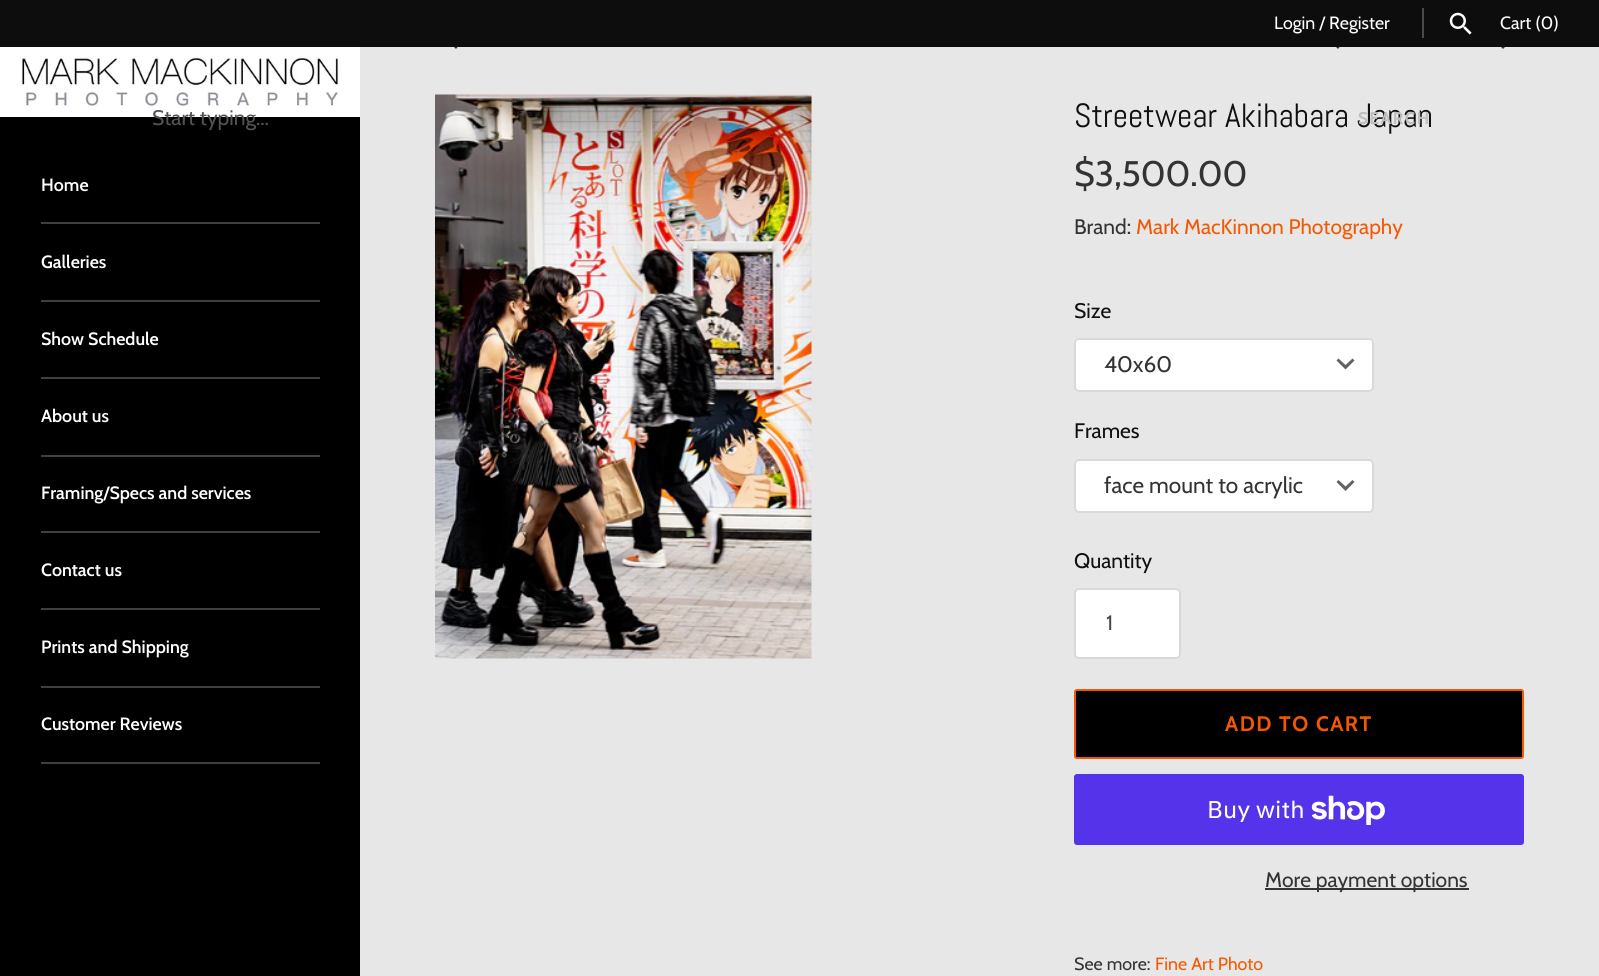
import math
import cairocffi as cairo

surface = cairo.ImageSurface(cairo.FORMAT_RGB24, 1599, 976)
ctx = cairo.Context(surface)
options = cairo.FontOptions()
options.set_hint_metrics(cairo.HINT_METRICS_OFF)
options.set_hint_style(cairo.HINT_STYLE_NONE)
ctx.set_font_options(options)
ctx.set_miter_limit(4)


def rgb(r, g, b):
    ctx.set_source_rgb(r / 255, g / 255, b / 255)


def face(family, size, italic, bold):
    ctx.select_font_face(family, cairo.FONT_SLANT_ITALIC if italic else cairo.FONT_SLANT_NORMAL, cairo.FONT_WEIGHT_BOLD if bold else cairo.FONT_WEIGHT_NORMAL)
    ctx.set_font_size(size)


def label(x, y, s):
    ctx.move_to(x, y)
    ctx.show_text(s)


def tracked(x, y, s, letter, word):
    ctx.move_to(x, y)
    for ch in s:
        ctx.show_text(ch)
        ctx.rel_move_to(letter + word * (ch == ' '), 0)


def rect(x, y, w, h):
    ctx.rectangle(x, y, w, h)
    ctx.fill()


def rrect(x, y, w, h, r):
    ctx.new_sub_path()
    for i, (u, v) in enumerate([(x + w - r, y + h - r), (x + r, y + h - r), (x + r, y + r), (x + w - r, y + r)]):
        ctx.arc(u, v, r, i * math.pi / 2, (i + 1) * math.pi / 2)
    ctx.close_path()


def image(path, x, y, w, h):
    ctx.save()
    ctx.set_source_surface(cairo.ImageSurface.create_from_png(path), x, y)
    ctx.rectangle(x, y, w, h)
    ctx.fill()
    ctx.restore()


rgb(231, 231, 231)
ctx.paint()
rgb(52, 52, 52)
ctx.new_path()
ctx.move_to(458, 46.5)
ctx.line_to(451, 40)
ctx.line_to(458, 33)
ctx.line_to(456, 31)
ctx.line_to(447, 40)
ctx.line_to(456, 49)
ctx.close_path()
ctx.fill()
ctx.new_path()
ctx.move_to(1340, 46.5)
ctx.line_to(1333, 40)
ctx.line_to(1340, 33)
ctx.line_to(1338, 31)
ctx.line_to(1329, 40)
ctx.line_to(1338, 49)
ctx.close_path()
ctx.fill()
ctx.new_path()
ctx.move_to(1501, 47)
ctx.line_to(1508, 40)
ctx.line_to(1501, 33)
ctx.line_to(1503, 31)
ctx.line_to(1512, 40)
ctx.line_to(1503, 49)
ctx.close_path()
ctx.fill()
rgb(13, 13, 13)
rect(0, 0, 1599, 47)
face('Cabin', 17.8, 0, 0)
rgb(255, 255, 255)
label(1274, 29, 'Login / Register')
rgb(74, 74, 74)
rect(1422, 8, 2, 30)
image('image0.png', 1449, 12, 23, 23)
rgb(255, 255, 255)
label(1500, 29, 'Cart (0)')
rgb(0, 0, 0)
rect(0, 117, 360, 859)
rgb(255, 255, 255)
rect(0, 107, 360, 10)
face('Cabin', 21, 0, 0)
rgb(83, 83, 83)
label(152, 125, 'Start typing...')
face('Abel', 33.6, 0, 0)
rgb(16, 16, 16)
label(1074, 127, 'Streetwear Akihabara Japan')
face('Cabin', 17, 0, 1)
rgb(190, 190, 190)
tracked(1358, 124, 'SEARCH', 1.5, 0)
image('image1.png', 0, 47, 360, 60)
rgb(64, 64, 64)
rect(41, 222, 279, 2)
face('Cabin SemiBold', 17.8, 0, 0)
rgb(255, 255, 255)
label(41, 191, 'Home')
rgb(64, 64, 64)
rect(41, 300, 279, 2)
rgb(255, 255, 255)
label(41, 268, 'Galleries')
rgb(64, 64, 64)
rect(41, 377, 279, 2)
rgb(255, 255, 255)
label(41, 345, 'Show Schedule')
rgb(64, 64, 64)
rect(41, 455, 279, 2)
rgb(255, 255, 255)
label(41, 422, 'About us')
rgb(64, 64, 64)
rect(41, 531, 279, 2)
rgb(255, 255, 255)
label(41, 499, 'Framing/Specs and services')
rgb(64, 64, 64)
rect(41, 608, 279, 2)
rgb(255, 255, 255)
label(41, 576, 'Contact us')
rgb(64, 64, 64)
rect(41, 686, 279, 2)
rgb(255, 255, 255)
label(41, 653, 'Prints and Shipping')
rgb(64, 64, 64)
rect(41, 762, 279, 2)
rgb(255, 255, 255)
label(41, 730, 'Customer Reviews')
image('image2.png', 435, 94, 377, 565)
face('Cabin', 35.5, 0, 0)
rgb(51, 51, 51)
label(1074, 186, '$3,500.00')
face('Cabin', 21, 0, 0)
label(1074, 234, 'Brand:')
rgb(244, 89, 2)
label(1136, 234, 'Mark MacKinnon Photography')
rgb(16, 16, 16)
label(1074, 318, 'Size')
rgb(255, 255, 255)
rrect(1074, 338, 300, 54, 5)
ctx.fill()
rgb(97, 97, 97)
ctx.new_path()
ctx.move_to(1338.5, 358.5)
ctx.line_to(1345.5, 365)
ctx.line_to(1352.5, 358.5)
ctx.line_to(1354.5, 360.5)
ctx.line_to(1345.5, 369.5)
ctx.line_to(1336.5, 360.5)
ctx.close_path()
ctx.fill()
rrect(1075, 339, 298, 52, 4)
ctx.set_source_rgba(0, 0, 0, 0.15)
ctx.stroke()
face('Cabin', 22.5, 0, 0)
rgb(51, 51, 51)
label(1104, 372, '40x60')
face('Cabin', 21, 0, 0)
rgb(16, 16, 16)
label(1074, 438, 'Frames')
rgb(255, 255, 255)
rrect(1074, 459, 300, 54, 5)
ctx.fill()
rgb(97, 97, 97)
ctx.new_path()
ctx.move_to(1338.5, 480)
ctx.line_to(1345.5, 486.5)
ctx.line_to(1352.5, 480)
ctx.line_to(1354.5, 482)
ctx.line_to(1345.5, 491)
ctx.line_to(1336.5, 482)
ctx.close_path()
ctx.fill()
rrect(1075, 460, 298, 52, 4)
ctx.set_source_rgba(0, 0, 0, 0.15)
ctx.stroke()
face('Cabin', 22.5, 0, 0)
rgb(51, 51, 51)
label(1104, 493, 'face mount to acrylic')
face('Cabin', 21, 0, 0)
rgb(16, 16, 16)
label(1074, 568, 'Quantity')
rgb(255, 255, 255)
rrect(1074, 588, 107, 71, 5)
ctx.fill()
rrect(1075, 589, 105, 69, 4)
ctx.set_source_rgba(0, 0, 0, 0.15)
ctx.stroke()
rgb(68, 68, 68)
label(1106, 630, '1')
rgb(0, 0, 0)
rrect(1075, 690, 448, 68, 2)
ctx.fill_preserve()
rgb(244, 89, 2)
ctx.stroke()
face('Cabin', 21, 0, 1)
tracked(1225, 731, 'ADD TO CART', 1.5, 0)
rgb(84, 51, 235)
rrect(1074, 774, 450, 71, 3)
ctx.fill()
face('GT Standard', 24, 0, 0)
rgb(255, 255, 255)
label(1207, 818, 'Buy with')
image('image3.png', 1311, 795, 74, 30)
rgb(52, 52, 52)
rect(1265, 888, 204, 2)
face('Cabin', 21, 0, 0)
rgb(51, 51, 51)
label(1265, 887, 'More payment options')
face('Cabin', 17.8, 0, 0)
label(1074, 970, 'See more:')
rgb(244, 89, 2)
label(1155, 970, 'Fine Art Photo')
surface.write_to_png('render.png')
